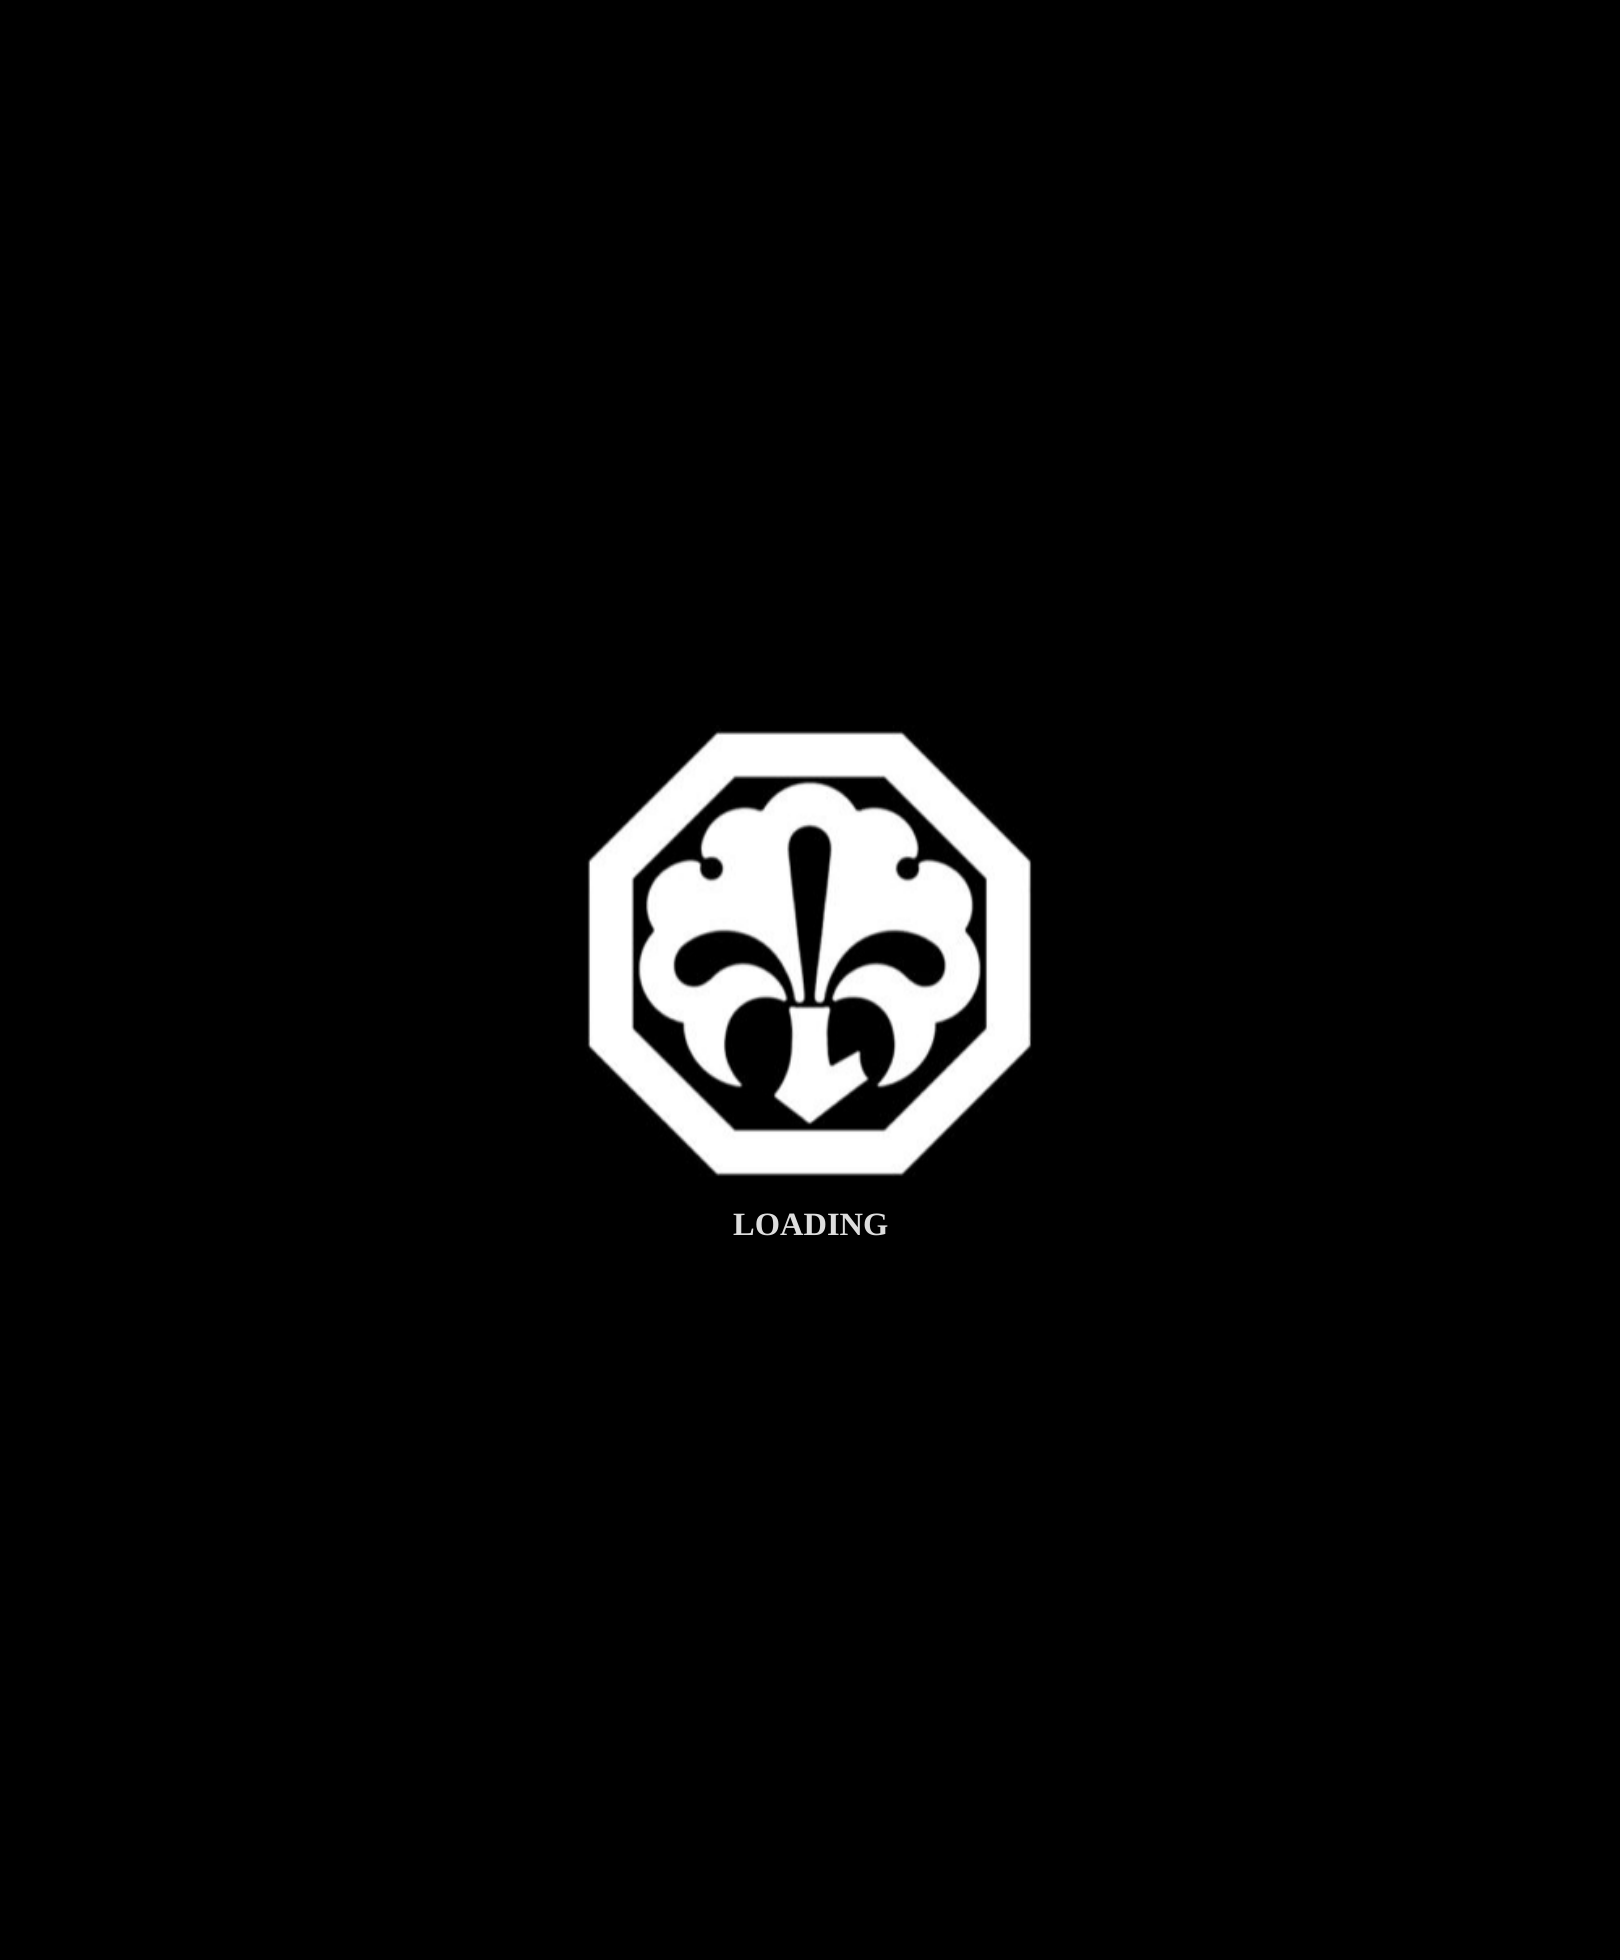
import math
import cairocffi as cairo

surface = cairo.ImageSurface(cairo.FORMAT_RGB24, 1620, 1960)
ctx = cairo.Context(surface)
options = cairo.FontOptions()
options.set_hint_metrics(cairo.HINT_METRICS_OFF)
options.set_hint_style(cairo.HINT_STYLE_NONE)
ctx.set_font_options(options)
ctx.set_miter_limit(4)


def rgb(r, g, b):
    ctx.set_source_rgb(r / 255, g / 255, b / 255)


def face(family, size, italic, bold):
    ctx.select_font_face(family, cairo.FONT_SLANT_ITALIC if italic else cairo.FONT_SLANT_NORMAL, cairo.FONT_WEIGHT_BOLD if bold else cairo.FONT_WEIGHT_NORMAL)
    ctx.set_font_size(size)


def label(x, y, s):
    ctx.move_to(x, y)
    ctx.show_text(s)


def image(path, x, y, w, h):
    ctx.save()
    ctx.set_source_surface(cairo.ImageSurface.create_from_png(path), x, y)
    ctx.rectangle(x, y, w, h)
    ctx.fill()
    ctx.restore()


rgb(0, 0, 0)
ctx.paint()
image('image0.png', 585, 725, 448, 452)
face('Liberation Serif', 32.5, 0, 1)
rgb(221, 221, 221)
label(733, 1235, 'LOADING')
surface.write_to_png('render.png')
